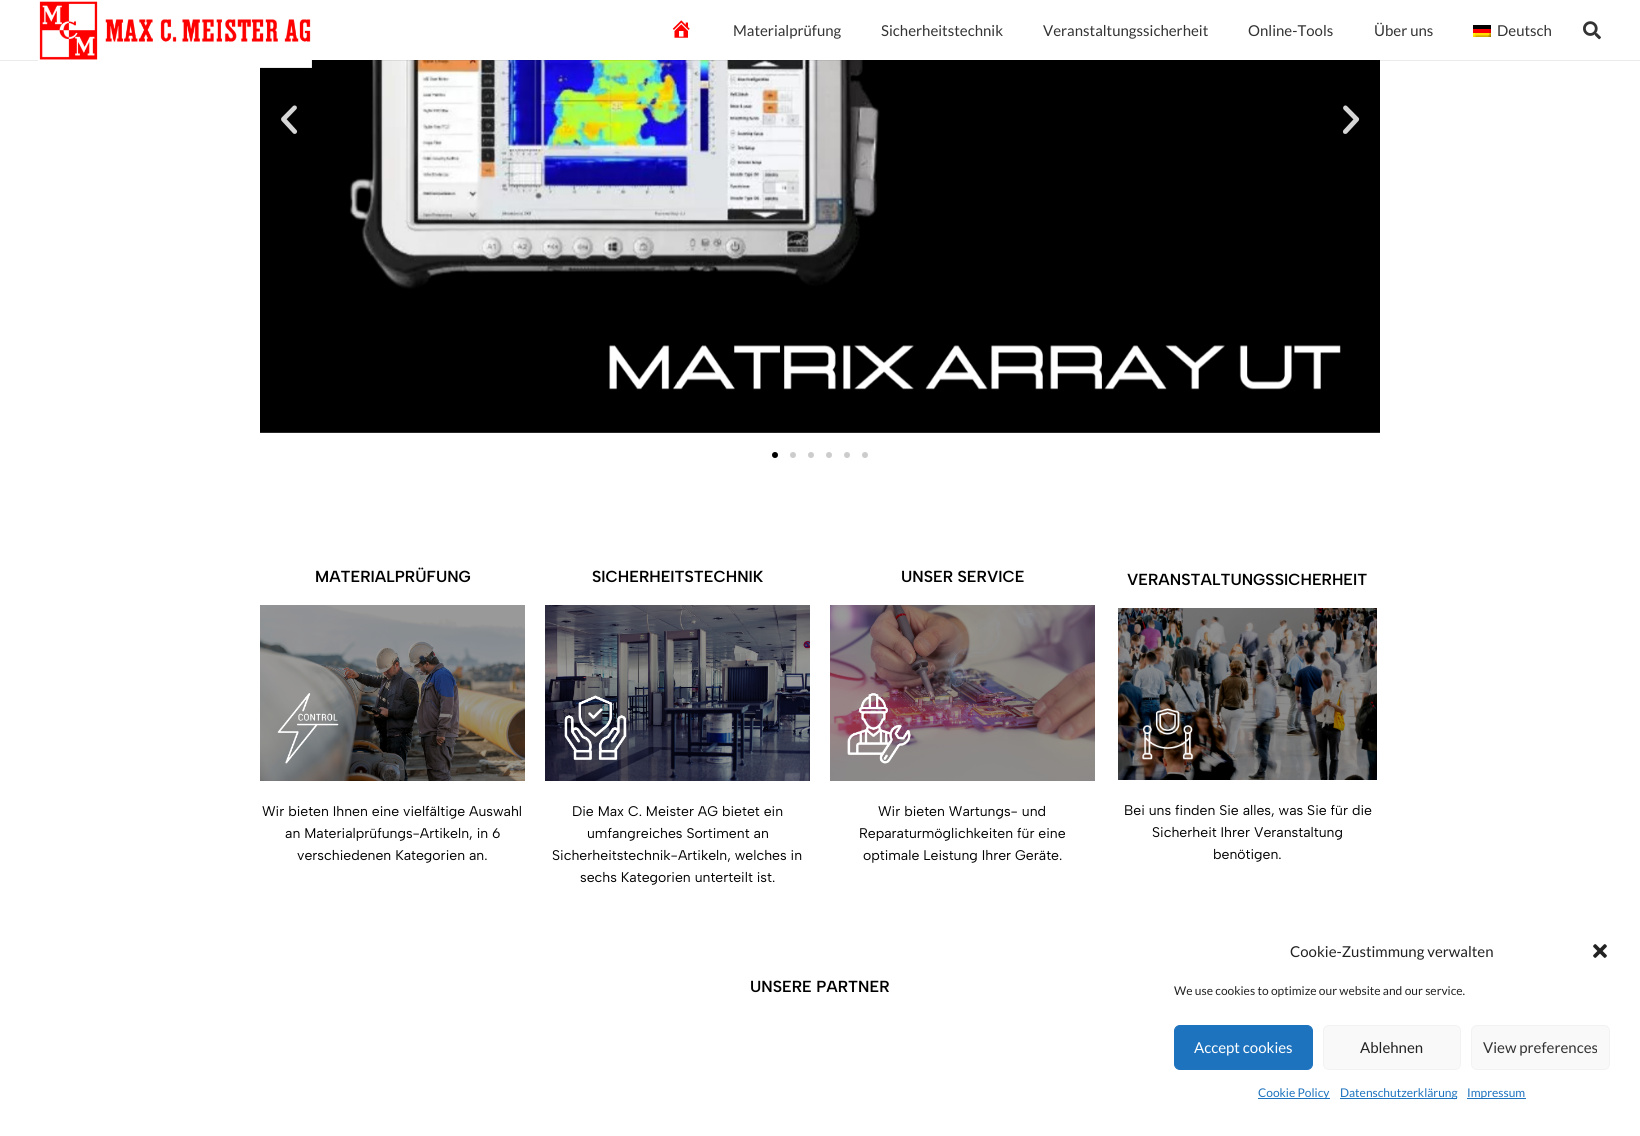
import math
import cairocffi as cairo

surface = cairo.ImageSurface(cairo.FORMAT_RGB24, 1640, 1136)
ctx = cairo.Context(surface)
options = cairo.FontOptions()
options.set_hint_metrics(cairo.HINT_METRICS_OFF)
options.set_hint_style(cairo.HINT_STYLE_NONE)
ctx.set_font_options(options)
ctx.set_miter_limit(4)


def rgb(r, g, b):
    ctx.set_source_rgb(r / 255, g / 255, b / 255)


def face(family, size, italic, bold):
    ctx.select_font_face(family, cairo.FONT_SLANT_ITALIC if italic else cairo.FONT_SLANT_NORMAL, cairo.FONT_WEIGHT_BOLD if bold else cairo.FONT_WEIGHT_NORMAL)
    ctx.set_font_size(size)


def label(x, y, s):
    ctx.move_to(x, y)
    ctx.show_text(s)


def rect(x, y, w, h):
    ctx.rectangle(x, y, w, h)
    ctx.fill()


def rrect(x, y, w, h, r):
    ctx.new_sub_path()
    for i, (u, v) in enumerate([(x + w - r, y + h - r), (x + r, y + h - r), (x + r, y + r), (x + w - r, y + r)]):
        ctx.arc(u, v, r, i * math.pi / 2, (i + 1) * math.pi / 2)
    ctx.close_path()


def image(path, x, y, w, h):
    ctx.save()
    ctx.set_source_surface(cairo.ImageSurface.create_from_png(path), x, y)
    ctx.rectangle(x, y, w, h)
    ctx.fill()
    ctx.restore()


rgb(255, 255, 255)
ctx.paint()
image('image4.png', 260, 60, 1120, 373)
ctx.set_source_rgba(0, 0, 0, 0.08)
rect(0, 60, 1640, 1)
image('image0.png', 38, 1, 274, 67)
image('image1.png', 672, 20, 18, 18)
face('Lato', 15, 0, 0)
rgb(51, 51, 51)
label(733, 36, 'Materialprüfung')
label(881, 36, 'Sicherheitstechnik')
label(1043, 36, 'Veranstaltungssicherheit')
label(1248, 36, 'Online-Tools')
label(1374, 36, 'Über uns')
image('image2.png', 1473, 25, 18, 12)
label(1497, 36, 'Deutsch')
image('image3.png', 1583, 21, 18, 19)
image('image5.png', 281, 105, 17, 29)
image('image6.png', 1343, 105, 17, 29)
rgb(0, 0, 0)
ctx.arc(775, 455, 3, 0, 2 * math.pi)
ctx.fill()
rgb(204, 204, 204)
ctx.arc(793, 455, 3, 0, 2 * math.pi)
ctx.fill()
ctx.arc(811, 455, 3, 0, 2 * math.pi)
ctx.fill()
ctx.arc(829, 455, 3, 0, 2 * math.pi)
ctx.fill()
ctx.arc(847, 455, 3, 0, 2 * math.pi)
ctx.fill()
ctx.arc(865, 455, 3, 0, 2 * math.pi)
ctx.fill()
face('Albert Sans SemiBold', 16, 0, 0)
rgb(0, 0, 0)
label(315, 582, 'MATERIALPRÜFUNG')
image('image7.png', 260, 605, 265, 176)
face('Albert Sans', 14, 0, 0)
label(262, 816, 'Wir bieten Ihnen eine vielfältige Auswahl')
label(285, 838, 'an Materialprüfungs-Artikeln, in 6')
label(297, 860, 'verschiedenen Kategorien an.')
face('Albert Sans SemiBold', 16, 0, 0)
label(592, 582, 'SICHERHEITSTECHNIK')
image('image8.png', 545, 605, 265, 176)
face('Albert Sans', 14, 0, 0)
label(572, 816, 'Die Max C. Meister AG bietet ein')
label(587, 838, 'umfangreiches Sortiment an')
label(552, 860, 'Sicherheitstechnik-Artikeln, welches in')
label(580, 882, 'sechs Kategorien unterteilt ist.')
face('Albert Sans SemiBold', 16, 0, 0)
label(901, 582, 'UNSER SERVICE')
image('image9.png', 830, 605, 265, 176)
face('Albert Sans', 14, 0, 0)
label(878, 816, 'Wir bieten Wartungs- und')
label(859, 838, 'Reparaturmöglichkeiten für eine')
label(863, 860, 'optimale Leistung Ihrer Geräte.')
face('Albert Sans SemiBold', 16, 0, 0)
label(1127, 585, 'VERANSTALTUNGSSICHERHEIT')
image('image10.png', 1118, 608, 259, 172)
face('Albert Sans', 14, 0, 0)
label(1124, 815, 'Bei uns finden Sie alles, was Sie für die')
label(1152, 837, 'Sicherheit Ihrer Veranstaltung')
label(1213, 859, 'benötigen.')
face('Albert Sans SemiBold', 16, 0, 0)
label(750, 992, 'UNSERE PARTNER')
face('Lato', 15, 0, 0)
rgb(34, 34, 34)
label(1290, 957, 'Cookie-Zustimmung verwalten')
image('image11.png', 1593, 944, 14, 14)
face('Lato', 12, 0, 0)
label(1174, 995, 'We use cookies to optimize our website and our service.')
rgb(30, 115, 190)
rrect(1174.5, 1025.5, 138, 44, 5.5)
ctx.fill_preserve()
ctx.set_line_width(1)
ctx.stroke()
face('Lato', 15, 0, 0)
rgb(255, 255, 255)
label(1194, 1053, 'Accept cookies')
rgb(249, 249, 249)
rrect(1323.5, 1025.5, 137, 44, 5.5)
ctx.fill_preserve()
rgb(242, 242, 242)
ctx.stroke()
rgb(34, 34, 34)
label(1360, 1053, 'Ablehnen')
rgb(249, 249, 249)
rrect(1471.5, 1025.5, 138, 44, 5.5)
ctx.fill_preserve()
rgb(242, 242, 242)
ctx.stroke()
rgb(51, 51, 51)
label(1483, 1053, 'View preferences')
rgb(30, 115, 190)
rect(1258, 1098, 72, 1)
face('Lato', 12, 0, 0)
label(1258, 1097, 'Cookie Policy')
rect(1340, 1098, 117, 1)
label(1340, 1097, 'Datenschutzerklärung')
rect(1467, 1098, 59, 1)
label(1467, 1097, 'Impressum')
surface.write_to_png('render.png')
